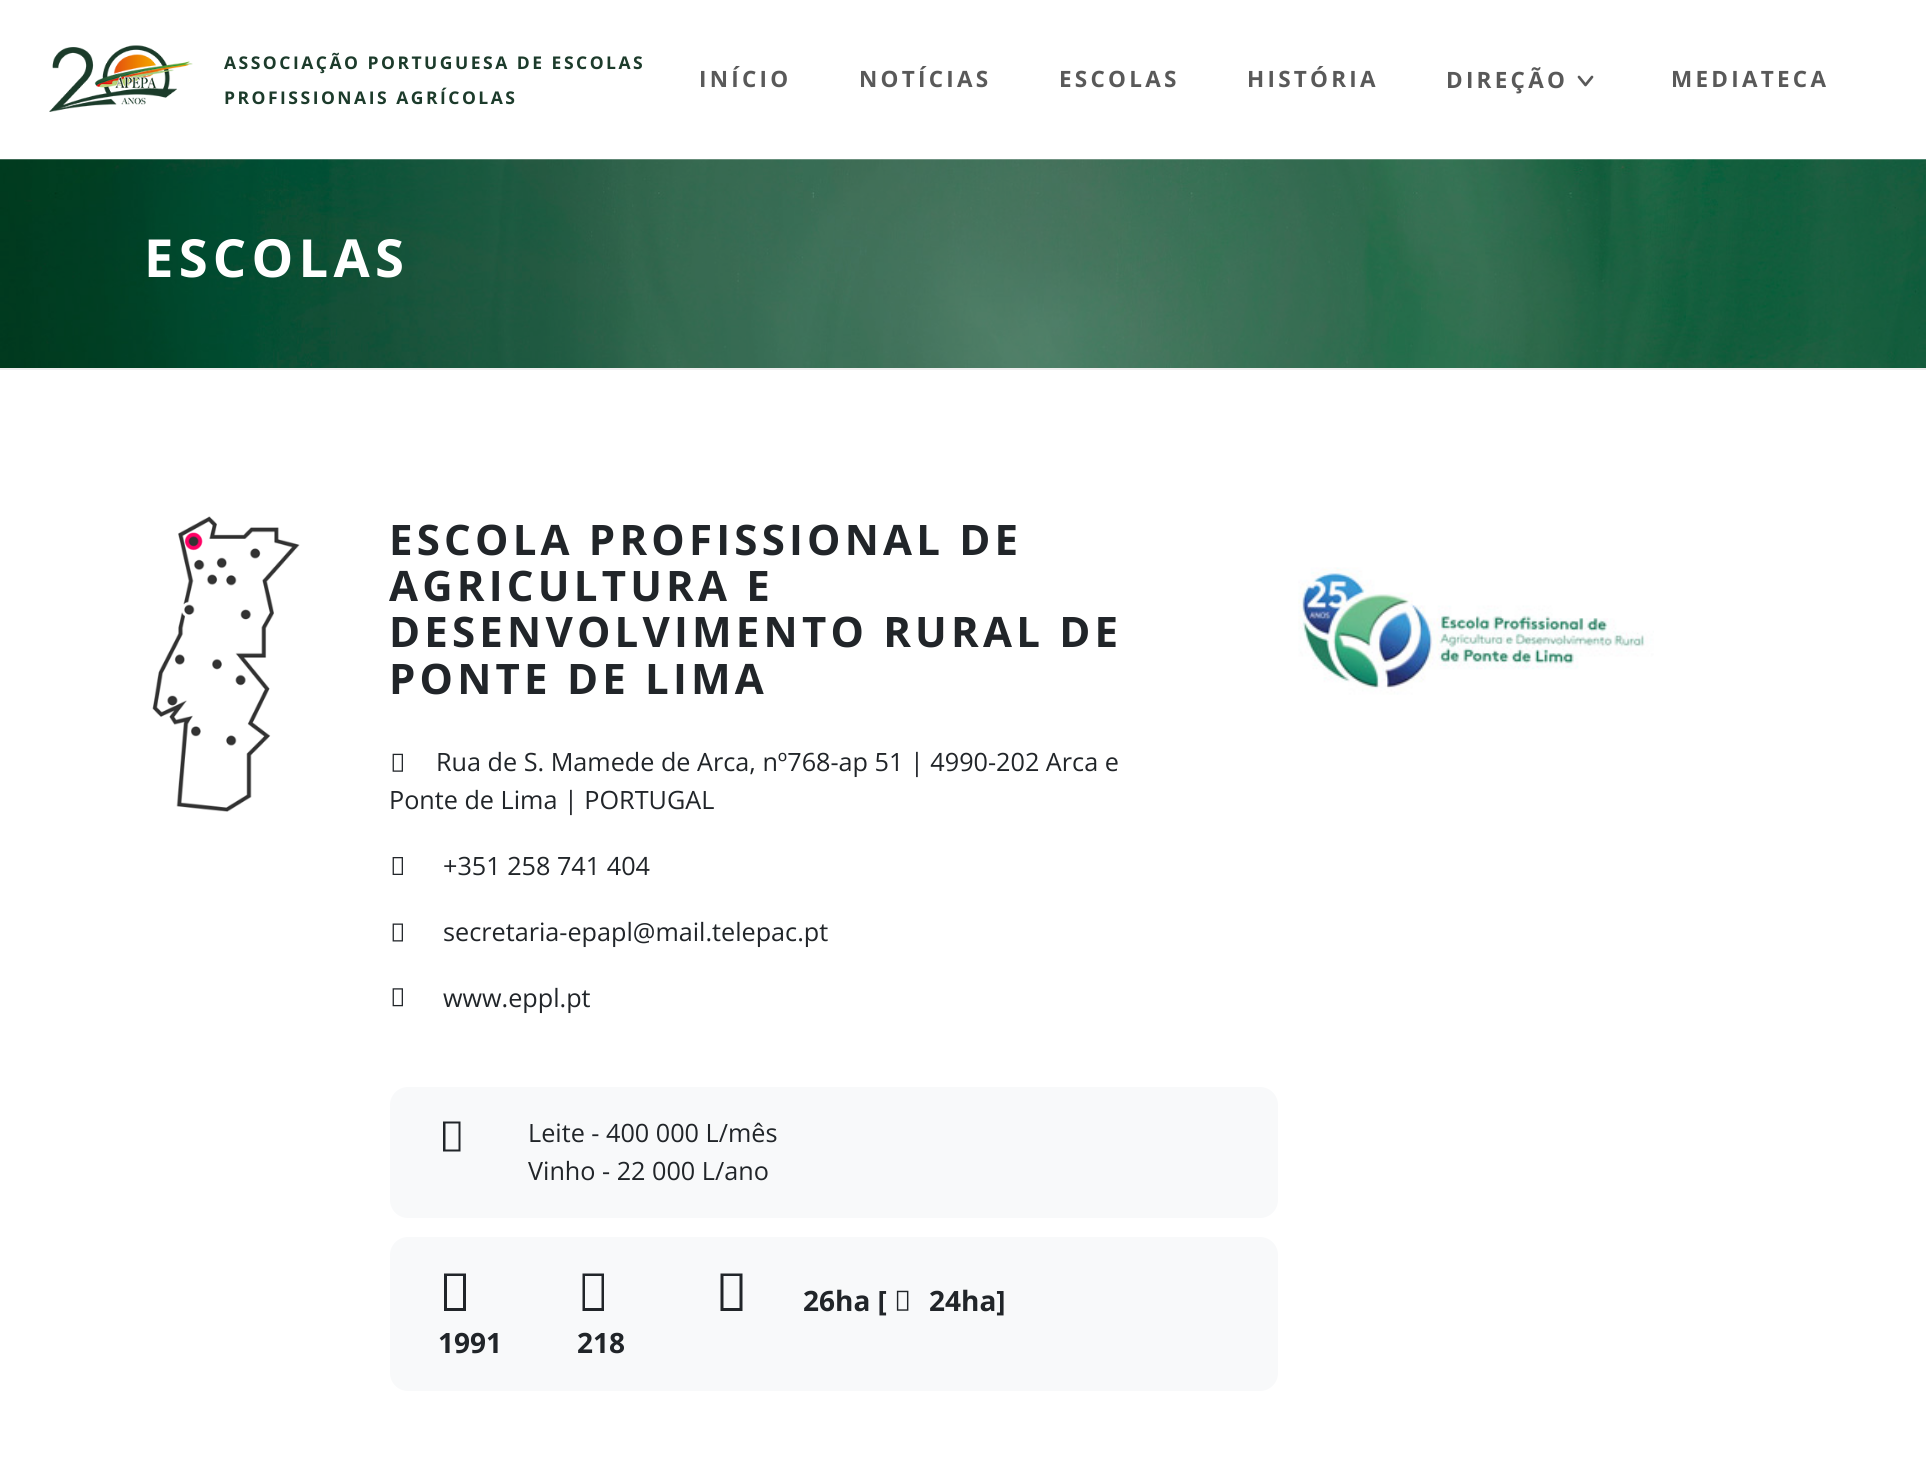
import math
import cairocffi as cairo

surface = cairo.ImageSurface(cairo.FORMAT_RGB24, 1926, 1484)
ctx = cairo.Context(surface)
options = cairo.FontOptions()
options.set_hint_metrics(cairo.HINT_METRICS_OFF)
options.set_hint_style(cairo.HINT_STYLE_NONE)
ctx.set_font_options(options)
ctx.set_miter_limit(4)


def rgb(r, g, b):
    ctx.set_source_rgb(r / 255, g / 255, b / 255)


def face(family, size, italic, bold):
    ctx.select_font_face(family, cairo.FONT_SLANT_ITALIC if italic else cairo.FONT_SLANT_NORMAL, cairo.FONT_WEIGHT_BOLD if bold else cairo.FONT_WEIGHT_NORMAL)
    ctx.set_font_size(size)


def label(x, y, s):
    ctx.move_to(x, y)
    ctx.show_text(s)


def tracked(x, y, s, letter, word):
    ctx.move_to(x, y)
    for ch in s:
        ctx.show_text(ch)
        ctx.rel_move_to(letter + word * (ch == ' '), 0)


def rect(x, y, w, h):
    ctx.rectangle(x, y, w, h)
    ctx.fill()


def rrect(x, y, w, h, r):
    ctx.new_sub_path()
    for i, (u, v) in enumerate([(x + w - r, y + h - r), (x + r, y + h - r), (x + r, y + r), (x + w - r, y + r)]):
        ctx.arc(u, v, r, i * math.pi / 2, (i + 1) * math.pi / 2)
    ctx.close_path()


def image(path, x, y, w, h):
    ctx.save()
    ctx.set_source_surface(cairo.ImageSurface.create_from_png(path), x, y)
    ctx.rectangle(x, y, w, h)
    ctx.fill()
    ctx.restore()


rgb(255, 255, 255)
ctx.paint()
image('image0.png', 49, 45, 144, 67)
face('Open Sans', 17.5, 0, 1)
rgb(28, 59, 43)
tracked(224, 69, 'ASSOCIAÇÃO PORTUGUESA DE ESCOLAS', 2.5, 0)
tracked(224, 104, 'PROFISSIONAIS AGRÍCOLAS', 2.5, 0)
face('Open Sans', 22.5, 0, 1)
rgb(89, 89, 89)
tracked(699, 87, 'INÍCIO', 3.25, 0)
tracked(859, 87, 'NOTÍCIAS', 3.25, 0)
tracked(1059, 87, 'ESCOLAS', 3.25, 0)
tracked(1247, 87, 'HISTÓRIA', 3.25, 0)
tracked(1446, 88, 'DIREÇÃO', 3.25, 0)
ctx.new_path()
ctx.move_to(1579, 77)
ctx.line_to(1585.5, 85)
ctx.line_to(1592, 77)
ctx.set_line_width(2.7)
ctx.set_line_cap(cairo.LINE_CAP_ROUND)
ctx.set_line_join(cairo.LINE_JOIN_ROUND)
ctx.stroke()
tracked(1671, 87, 'MEDIATECA', 3.25, 0)
image('image1.png', 0, 159, 1926, 209)
rgb(238, 238, 238)
rect(0, 368, 1926, 2)
face('Open Sans', 52.5, 0, 1)
rgb(255, 255, 255)
tracked(144, 277, 'ESCOLAS', 5.25, 0)
image('image2.png', 152, 516, 148, 296)
face('Open Sans', 42, 0, 1)
rgb(33, 37, 41)
tracked(389, 555, 'ESCOLA PROFISSIONAL DE', 4.2, 0)
tracked(389, 601, 'AGRICULTURA E', 4.2, 0)
tracked(389, 647, 'DESENVOLVIMENTO RURAL DE', 4.2, 0)
tracked(389, 694, 'PONTE DE LIMA', 4.2, 0)
image('image3.png', 392, 753, 11, 19)
face('Open Sans', 25.2, 0, 0)
label(436, 771, 'Rua de S. Mamede de Arca, nº768-ap 51 | 4990-202 Arca e')
label(389, 809, 'Ponte de Lima | PORTUGAL')
image('image4.png', 392, 857, 11, 18)
label(443, 875, '+351 258 741 404')
image('image5.png', 392, 923, 11, 19)
label(443, 941, 'secretaria-epapl@mail.telepac.pt')
image('image6.png', 392, 988, 11, 19)
label(443, 1007, 'www.eppl.pt')
image('image7.png', 1298, 567, 356, 128)
rgb(248, 249, 250)
rrect(390, 1087, 888, 131, 18)
ctx.fill()
rgb(33, 37, 41)
ctx.new_path()
ctx.move_to(443, 1151.5)
ctx.line_to(443, 1121.5)
ctx.line_to(460.5, 1121.5)
ctx.line_to(460.5, 1151.5)
ctx.close_path()
ctx.move_to(445.5, 1149.5)
ctx.line_to(458.5, 1149.5)
ctx.line_to(458.5, 1123.5)
ctx.line_to(445.5, 1123.5)
ctx.close_path()
ctx.fill()
label(528, 1142, 'Leite - 400 000 L/mês')
label(528, 1180, 'Vinho - 22 000 L/ano')
rgb(248, 249, 250)
rrect(390, 1237, 888, 154, 18)
ctx.fill()
rgb(33, 37, 41)
ctx.new_path()
ctx.move_to(720.5, 1311)
ctx.line_to(720.5, 1273.5)
ctx.line_to(742.5, 1273.5)
ctx.line_to(742.5, 1311)
ctx.close_path()
ctx.move_to(723.5, 1308)
ctx.line_to(739.5, 1308)
ctx.line_to(739.5, 1276)
ctx.line_to(723.5, 1276)
ctx.close_path()
ctx.fill()
face('Open Sans', 28, 0, 1)
label(803, 1311, '26ha [')
image('image8.png', 896, 1290, 13, 21)
label(929, 1311, '24ha]')
ctx.new_path()
ctx.move_to(444, 1311)
ctx.line_to(444, 1273.5)
ctx.line_to(466, 1273.5)
ctx.line_to(466, 1311)
ctx.close_path()
ctx.move_to(447, 1308)
ctx.line_to(463, 1308)
ctx.line_to(463, 1276)
ctx.line_to(447, 1276)
ctx.close_path()
ctx.fill()
label(438, 1353, '1991')
ctx.new_path()
ctx.move_to(582.5, 1311)
ctx.line_to(582.5, 1273.5)
ctx.line_to(604, 1273.5)
ctx.line_to(604, 1311)
ctx.close_path()
ctx.move_to(585, 1308)
ctx.line_to(601.5, 1308)
ctx.line_to(601.5, 1276)
ctx.line_to(585, 1276)
ctx.close_path()
ctx.fill()
label(577, 1353, '218')
surface.write_to_png('render.png')
